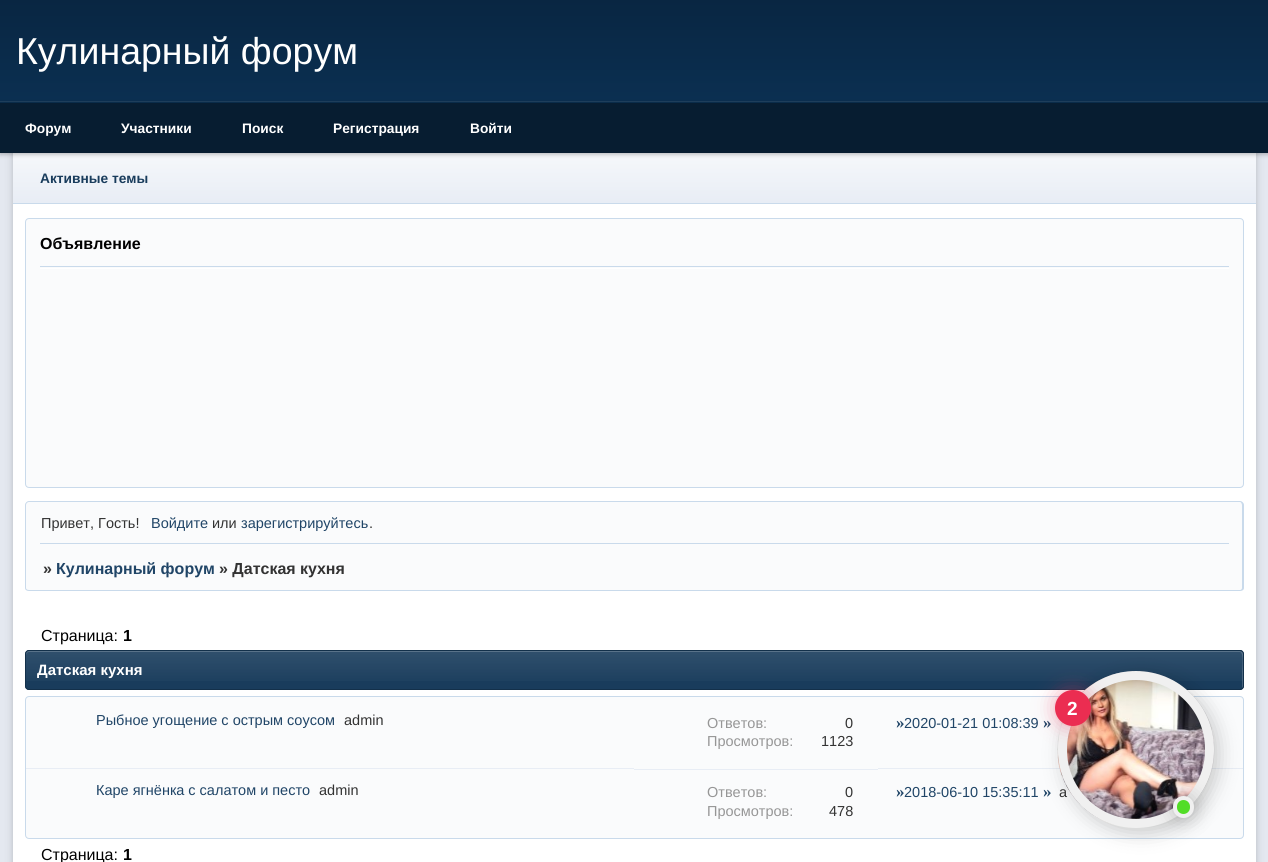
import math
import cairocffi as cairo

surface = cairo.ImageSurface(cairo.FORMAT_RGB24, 1268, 862)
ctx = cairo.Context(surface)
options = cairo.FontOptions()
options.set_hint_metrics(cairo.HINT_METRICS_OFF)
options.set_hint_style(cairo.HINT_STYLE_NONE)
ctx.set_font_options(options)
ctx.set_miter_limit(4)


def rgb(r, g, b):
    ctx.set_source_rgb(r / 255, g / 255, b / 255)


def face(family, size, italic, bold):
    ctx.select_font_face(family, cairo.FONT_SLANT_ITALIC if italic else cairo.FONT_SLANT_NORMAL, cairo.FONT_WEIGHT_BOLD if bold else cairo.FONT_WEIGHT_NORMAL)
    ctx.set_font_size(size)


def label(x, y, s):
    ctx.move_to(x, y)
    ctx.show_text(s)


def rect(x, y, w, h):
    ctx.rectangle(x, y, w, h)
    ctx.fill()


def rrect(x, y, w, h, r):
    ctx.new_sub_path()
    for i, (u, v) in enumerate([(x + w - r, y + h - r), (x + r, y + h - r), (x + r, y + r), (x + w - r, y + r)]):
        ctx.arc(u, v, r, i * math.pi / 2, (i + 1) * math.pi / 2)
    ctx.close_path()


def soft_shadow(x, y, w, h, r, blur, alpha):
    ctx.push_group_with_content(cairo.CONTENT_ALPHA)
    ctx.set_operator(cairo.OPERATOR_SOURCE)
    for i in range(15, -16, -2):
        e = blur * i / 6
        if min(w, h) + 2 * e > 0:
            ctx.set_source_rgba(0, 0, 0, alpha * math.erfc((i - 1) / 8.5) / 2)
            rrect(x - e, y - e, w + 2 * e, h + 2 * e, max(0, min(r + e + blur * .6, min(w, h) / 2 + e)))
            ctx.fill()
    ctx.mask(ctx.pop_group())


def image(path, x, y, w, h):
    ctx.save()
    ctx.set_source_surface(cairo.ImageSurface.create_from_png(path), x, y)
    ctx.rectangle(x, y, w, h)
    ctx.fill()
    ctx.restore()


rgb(228, 232, 240)
ctx.paint()
rgb(0, 0, 0)
soft_shadow(13, 0, 1243, 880, 6, 4, 0.2)
rgb(255, 255, 255)
rect(13, 204, 1243, 658)
gradient = cairo.LinearGradient(634, 0, 634, 153)
gradient.add_color_stop_rgba(0, 0.035, 0.149, 0.259, 1)
gradient.add_color_stop_rgba(0.7, 0.043, 0.188, 0.322, 1)
ctx.set_source(gradient)
rect(0, 0, 1268, 153)
face('Liberation Sans', 37.5, 0, 0)
rgb(255, 255, 255)
label(16, 64, 'Кулинарный форум')
gradient = cairo.LinearGradient(634, 152, 634, 203)
gradient.add_color_stop_rgba(0, 0.965, 0.973, 0.984, 1)
gradient.add_color_stop_rgba(1, 0.91, 0.929, 0.961, 1)
ctx.set_source(gradient)
rect(13, 153, 1243, 50)
ctx.save()
ctx.set_fill_rule(cairo.FILL_RULE_EVEN_ODD)
ctx.new_path()
ctx.move_to(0, 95)
ctx.line_to(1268, 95)
ctx.line_to(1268, 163)
ctx.line_to(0, 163)
ctx.close_path()
ctx.move_to(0, 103)
ctx.line_to(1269, 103)
ctx.line_to(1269, 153)
ctx.line_to(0, 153)
ctx.close_path()
ctx.clip()
rgb(0, 0, 0)
soft_shadow(0, 104, 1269, 50, 0, 2.5, 0.3)
ctx.restore()
rgb(30, 62, 91)
ctx.new_path()
ctx.move_to(0, 101)
ctx.line_to(0, 102)
ctx.line_to(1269, 102)
ctx.line_to(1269, 151)
ctx.line_to(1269, 101)
ctx.close_path()
ctx.fill()
ctx.set_source_rgba(0, 0, 0, 0.4)
rect(0, 103, 1268, 50)
face('Liberation Sans', 13.75, 0, 1)
rgb(255, 255, 255)
label(25, 133, 'Форум')
label(121, 133, 'Участники')
label(242, 133, 'Поиск')
label(333, 133, 'Регистрация')
label(470, 133, 'Войти')
rgb(201, 218, 235)
rect(13, 203, 1243, 1)
rgb(25, 60, 92)
label(40, 183, 'Активные темы')
rgb(250, 251, 252)
rrect(25.5, 218.5, 1218, 269, 3.5)
ctx.fill_preserve()
rgb(201, 218, 235)
ctx.set_line_width(1)
ctx.stroke()
rgb(255, 255, 255)
rect(40, 268, 1189, 1)
rgb(201, 218, 235)
rect(40, 266, 1189, 1)
face('Liberation Sans', 16, 0, 1)
rgb(0, 0, 0)
label(40, 249, 'Объявление')
rgb(250, 251, 252)
ctx.new_path()
ctx.move_to(29, 501)
ctx.line_to(1240, 501)
ctx.curve_to(1242, 501, 1244, 503, 1244, 505)
ctx.line_to(1244, 545)
ctx.line_to(25, 545)
ctx.line_to(25, 505)
ctx.curve_to(25, 503, 27, 501, 29, 501)
ctx.close_path()
ctx.fill()
rgb(201, 218, 235)
ctx.set_fill_rule(cairo.FILL_RULE_EVEN_ODD)
ctx.new_path()
ctx.move_to(29, 501)
ctx.line_to(1240, 501)
ctx.curve_to(1242, 501, 1244, 503, 1244, 505)
ctx.line_to(1244, 545)
ctx.line_to(25, 545)
ctx.line_to(25, 505)
ctx.curve_to(25, 503, 27, 501, 29, 501)
ctx.close_path()
ctx.move_to(29, 502)
ctx.line_to(1240, 502)
ctx.curve_to(1241, 502, 1242, 504, 1242, 505)
ctx.line_to(1242, 545)
ctx.line_to(26, 545)
ctx.line_to(26, 505)
ctx.curve_to(26, 504, 27, 502, 29, 502)
ctx.close_path()
ctx.fill()
face('Liberation Sans', 14.5, 0, 0)
rgb(51, 51, 51)
label(41, 528, 'Привет, Гость!')
rgb(32, 69, 103)
label(151, 528, 'Войдите')
rgb(51, 51, 51)
label(212, 528, 'или')
rgb(32, 69, 103)
label(241, 528, 'зарегистрируйтесь')
rgb(51, 51, 51)
label(369, 528, '.')
rgb(250, 251, 252)
ctx.new_path()
ctx.move_to(25, 543)
ctx.line_to(1244, 543)
ctx.line_to(1244, 587)
ctx.curve_to(1244, 589, 1242, 591, 1240, 591)
ctx.line_to(29, 591)
ctx.curve_to(27, 591, 25, 589, 25, 587)
ctx.close_path()
ctx.fill()
ctx.save()
ctx.set_fill_rule(cairo.FILL_RULE_WINDING)
ctx.rectangle(25, 543, 1219, 48)
ctx.clip()
rgb(201, 218, 235)
ctx.set_fill_rule(cairo.FILL_RULE_EVEN_ODD)
ctx.new_path()
ctx.move_to(25, 542)
ctx.line_to(1244, 542)
ctx.line_to(1244, 588)
ctx.curve_to(1244, 590, 1242, 591, 1240, 591)
ctx.line_to(29, 591)
ctx.curve_to(27, 591, 25, 590, 25, 588)
ctx.close_path()
ctx.move_to(26, 542)
ctx.line_to(1242, 542)
ctx.line_to(1242, 588)
ctx.curve_to(1242, 589, 1241, 590, 1240, 590)
ctx.line_to(29, 590)
ctx.curve_to(27, 590, 26, 589, 26, 588)
ctx.close_path()
ctx.fill()
ctx.restore()
rgb(201, 218, 235)
rect(40, 543, 1189, 1)
face('Liberation Sans', 16, 0, 1)
rgb(51, 51, 51)
label(43, 574, '»')
rgb(32, 69, 103)
label(56, 574, 'Кулинарный форум')
rgb(51, 51, 51)
label(219, 574, '» Датская кухня')
face('Liberation Sans', 16, 0, 0)
rgb(0, 0, 0)
label(41, 641, 'Страница:')
face('Liberation Sans', 16, 0, 1)
label(123, 641, '1')
rgb(25, 60, 92)
rrect(25, 650, 1219, 40, 4)
ctx.fill()
gradient = cairo.LinearGradient(634, 651, 634, 689)
gradient.add_color_stop_rgba(0, 1, 1, 1, 0.1)
gradient.add_color_stop_rgba(1, 1, 1, 1, 0)
ctx.set_source(gradient)
rect(25, 651, 1219, 30)
ctx.set_source_rgba(1, 1, 1, 0.2)
ctx.set_fill_rule(cairo.FILL_RULE_WINDING)
ctx.new_path()
ctx.move_to(29, 652)
ctx.line_to(1240, 652)
ctx.curve_to(1244, 652, 1242, 669, 1242, 672)
ctx.line_to(1242, 689)
ctx.line_to(1243, 687)
ctx.curve_to(1243, 684, 1243, 653, 1243, 652)
ctx.line_to(1240, 651)
ctx.line_to(28, 651)
ctx.curve_to(26, 651, 26, 653, 26, 655)
ctx.curve_to(26, 654, 27, 652, 29, 652)
ctx.close_path()
ctx.fill()
rrect(25.5, 650.5, 1218, 39, 3.5)
rgb(19, 48, 74)
ctx.stroke()
face('Liberation Sans', 15, 0, 1)
rgb(255, 255, 255)
label(37, 675, 'Датская кухня')
rgb(250, 251, 252)
rrect(25.5, 696.5, 1218, 142, 3.5)
ctx.fill_preserve()
rgb(201, 218, 235)
ctx.stroke()
face('Liberation Sans', 14.5, 0, 0)
rgb(32, 69, 103)
label(96, 725, 'Рыбное угощение с острым соусом')
rgb(51, 51, 51)
label(344, 725, 'admin')
rgb(150, 150, 150)
label(707, 728, 'Ответов:')
rgb(51, 51, 51)
label(845, 728, '0')
face('Liberation Serif', 17, 0, 1)
rgb(32, 69, 103)
label(896, 728, '»')
face('Liberation Sans', 14.5, 0, 0)
label(904, 728, '2020-01-21 01:08:39')
face('Liberation Serif', 17, 0, 1)
label(1043, 728, '»')
face('Liberation Sans', 14.5, 0, 0)
rgb(150, 150, 150)
label(707, 746, 'Просмотров:')
rgb(51, 51, 51)
label(821, 746, '1123')
rgb(232, 237, 245)
rect(26, 768, 608, 1)
rgb(32, 69, 103)
label(96, 795, 'Каре ягнёнка с салатом и песто')
rgb(51, 51, 51)
label(319, 795, 'admin')
rgb(232, 237, 245)
rect(634, 769, 244, 1)
rgb(150, 150, 150)
label(707, 797, 'Ответов:')
rgb(51, 51, 51)
label(845, 797, '0')
rgb(232, 237, 245)
rect(878, 768, 365, 1)
face('Liberation Serif', 17, 0, 1)
rgb(32, 69, 103)
label(896, 797, '»')
face('Liberation Sans', 14.5, 0, 0)
label(904, 797, '2018-06-10 15:35:11')
face('Liberation Serif', 17, 0, 1)
label(1043, 797, '»')
face('Liberation Sans', 14.5, 0, 0)
rgb(51, 51, 51)
label(1059, 797, 'a')
rgb(150, 150, 150)
label(707, 816, 'Просмотров:')
rgb(51, 51, 51)
label(829, 816, '478')
face('Liberation Sans', 16, 0, 0)
rgb(0, 0, 0)
label(41, 860, 'Страница:')
face('Liberation Sans', 16, 0, 1)
label(123, 860, '1')
rgb(0, 0, 0)
soft_shadow(1063, 676, 156, 157, 78, 10, 0.2)
image('image0.png', 1057, 671, 158, 157)
rrect(1062.5, 675.5, 147, 148, 73.5)
rgb(240, 240, 240)
ctx.set_line_width(9)
ctx.stroke()
rgb(235, 45, 81)
soft_shadow(1055, 690, 36, 36, 18, 10, 0.4)
rgb(235, 45, 81)
ctx.arc(1073, 708, 18, 0, 2 * math.pi)
ctx.fill()
face('Liberation Sans', 19, 0, 1)
rgb(255, 255, 255)
label(1067, 715, '2')
rgb(0, 0, 0)
soft_shadow(1173, 796, 21, 22, 10.5, 10, 0.2)
rgb(82, 221, 38)
rrect(1175, 798, 17, 18, 8.5)
ctx.fill_preserve()
rgb(240, 240, 240)
ctx.set_line_width(4)
ctx.stroke()
surface.write_to_png('render.png')
